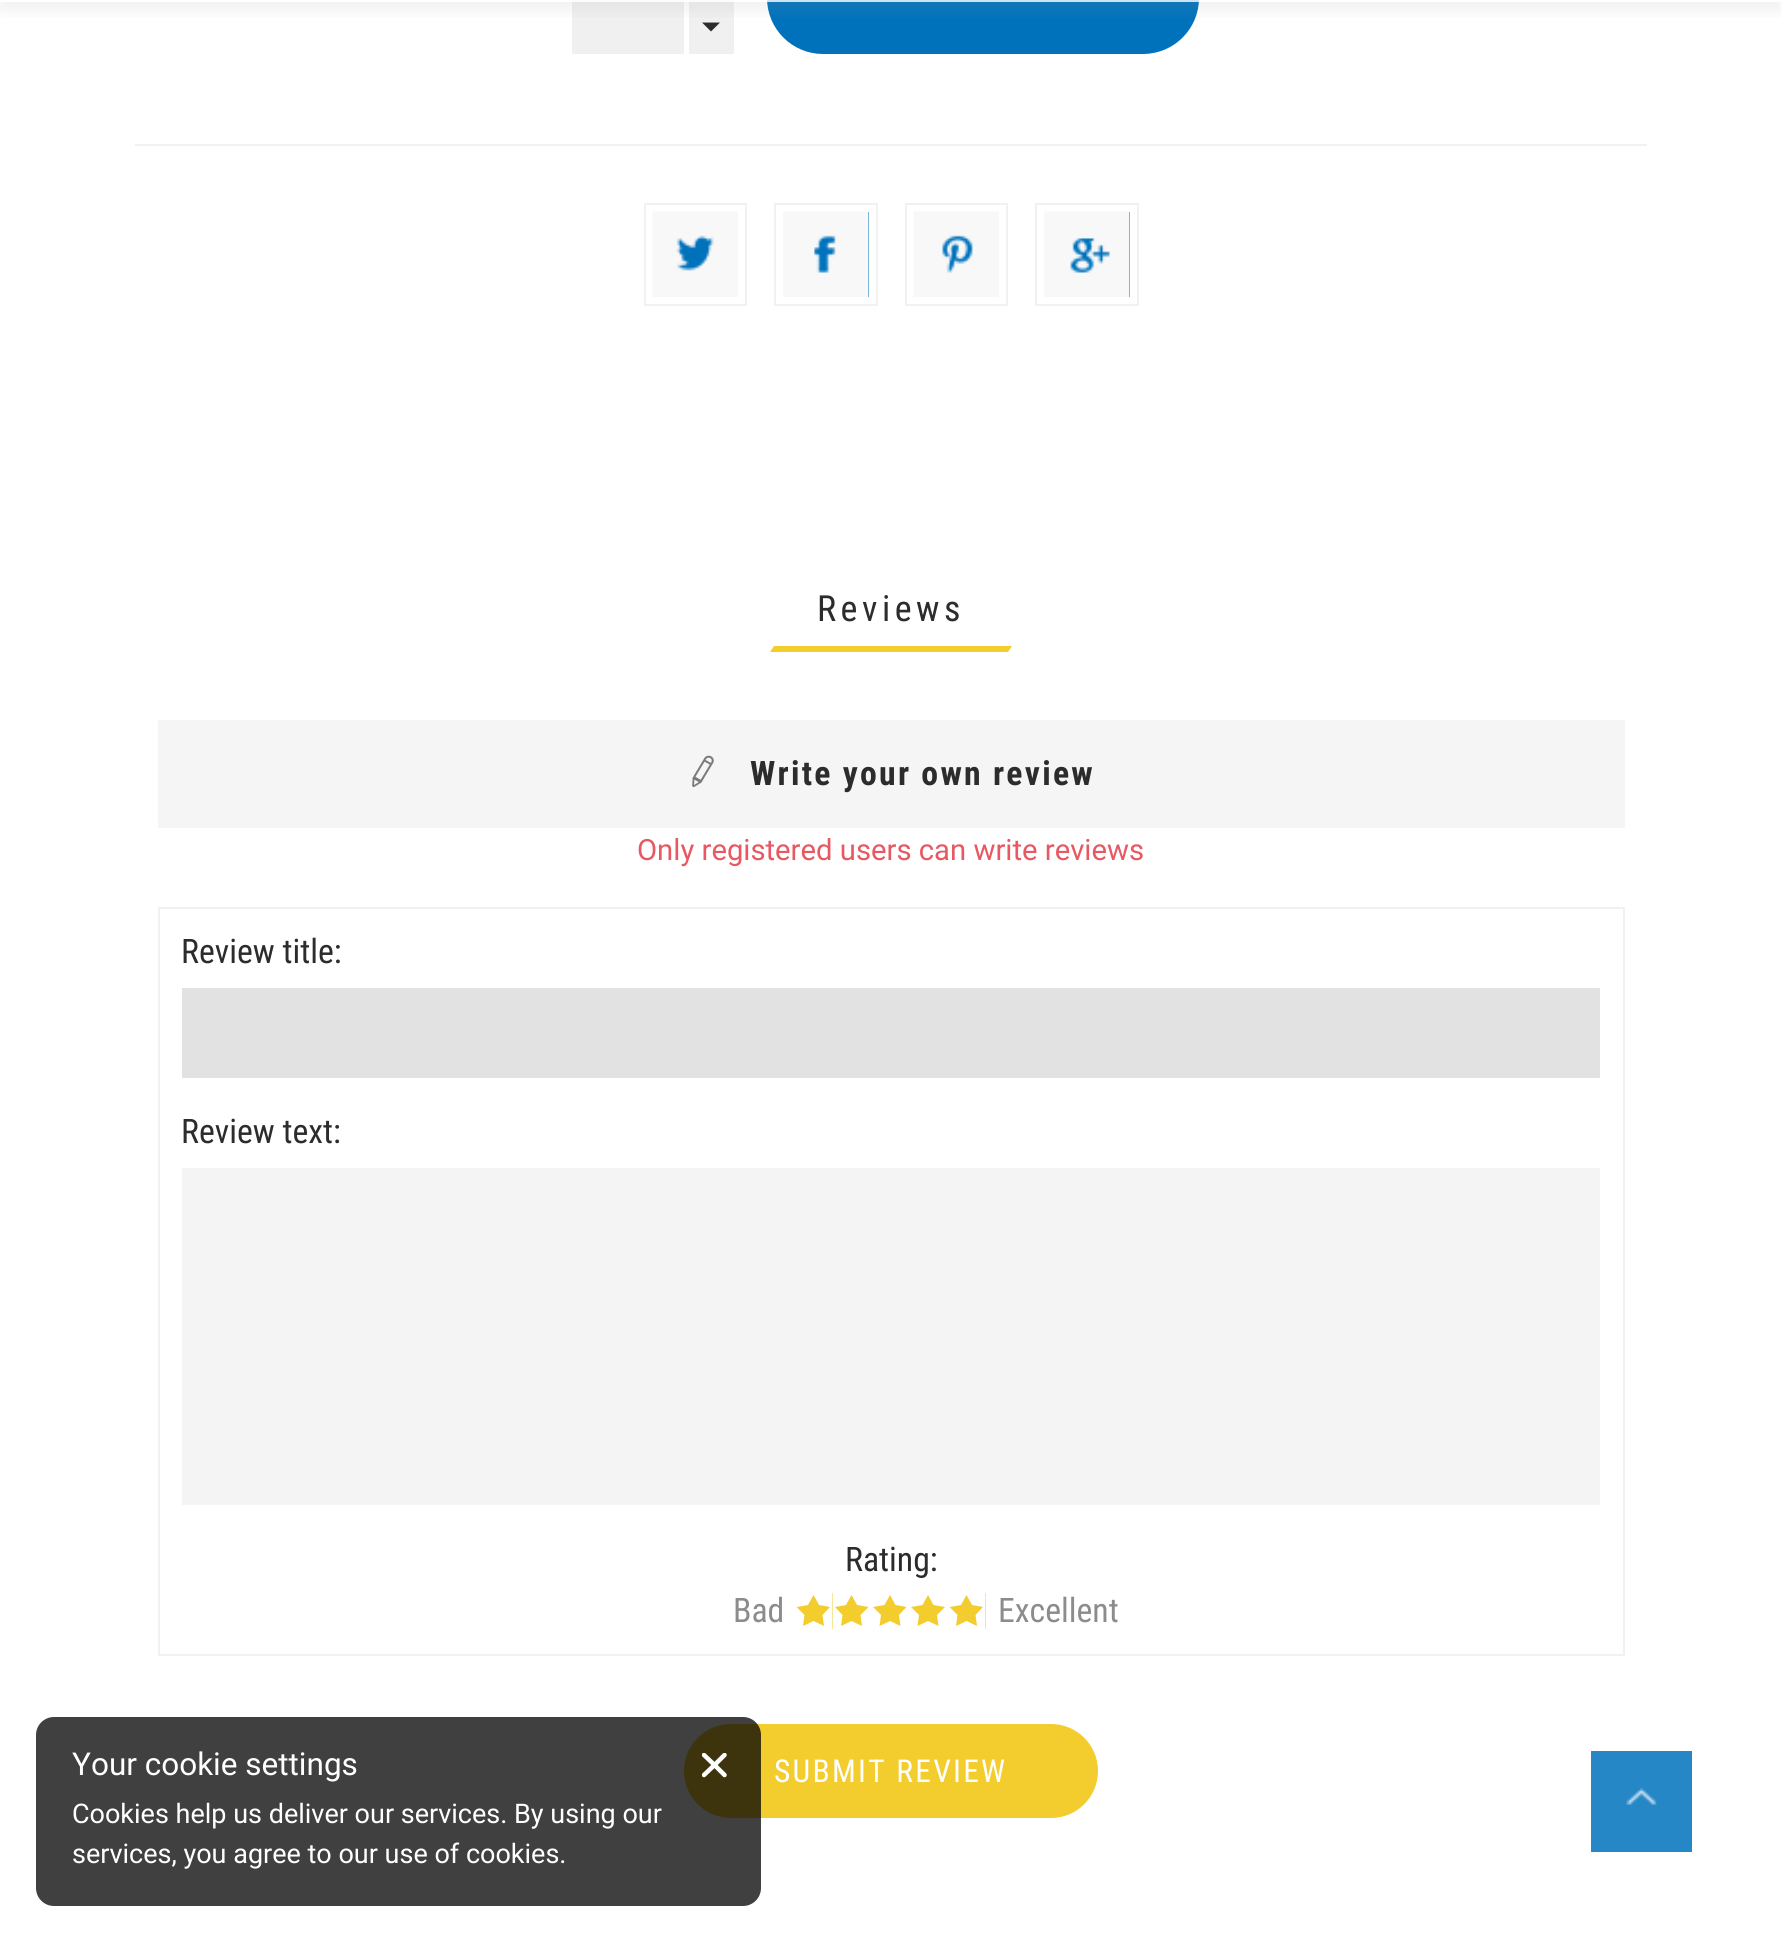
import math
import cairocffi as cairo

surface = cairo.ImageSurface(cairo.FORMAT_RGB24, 1781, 1941)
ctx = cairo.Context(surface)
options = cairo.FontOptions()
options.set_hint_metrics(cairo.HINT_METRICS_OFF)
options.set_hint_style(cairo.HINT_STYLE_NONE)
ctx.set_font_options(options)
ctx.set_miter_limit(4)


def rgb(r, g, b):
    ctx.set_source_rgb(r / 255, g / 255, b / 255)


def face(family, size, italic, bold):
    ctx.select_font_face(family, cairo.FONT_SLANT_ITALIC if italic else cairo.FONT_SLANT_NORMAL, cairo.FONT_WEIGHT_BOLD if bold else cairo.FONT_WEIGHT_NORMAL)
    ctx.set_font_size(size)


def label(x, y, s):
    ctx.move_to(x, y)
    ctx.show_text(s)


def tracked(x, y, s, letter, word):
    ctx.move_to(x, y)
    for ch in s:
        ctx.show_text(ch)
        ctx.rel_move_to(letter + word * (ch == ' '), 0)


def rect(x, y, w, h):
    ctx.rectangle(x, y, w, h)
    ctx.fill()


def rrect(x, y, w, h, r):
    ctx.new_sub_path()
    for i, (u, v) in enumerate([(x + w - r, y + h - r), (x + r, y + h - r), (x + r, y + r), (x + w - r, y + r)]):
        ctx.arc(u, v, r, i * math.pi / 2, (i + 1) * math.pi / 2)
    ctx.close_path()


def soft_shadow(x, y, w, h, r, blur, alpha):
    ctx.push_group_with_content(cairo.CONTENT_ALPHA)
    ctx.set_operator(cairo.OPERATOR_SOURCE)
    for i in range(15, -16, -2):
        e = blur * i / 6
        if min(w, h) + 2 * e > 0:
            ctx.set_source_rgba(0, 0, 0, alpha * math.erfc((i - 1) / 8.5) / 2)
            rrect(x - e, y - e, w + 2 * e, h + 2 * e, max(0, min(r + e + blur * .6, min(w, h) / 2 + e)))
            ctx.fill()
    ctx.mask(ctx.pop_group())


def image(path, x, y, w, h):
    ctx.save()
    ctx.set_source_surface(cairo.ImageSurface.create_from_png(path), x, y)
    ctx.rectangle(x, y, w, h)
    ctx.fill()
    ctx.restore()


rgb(255, 255, 255)
ctx.paint()
rgb(240, 240, 240)
rect(572, 0, 112, 54)
rect(689, 0, 45, 54)
rgb(44, 44, 44)
ctx.new_path()
ctx.move_to(702, 22.5)
ctx.line_to(720, 22.5)
ctx.line_to(711, 31.5)
ctx.close_path()
ctx.fill()
rgb(0, 114, 188)
rrect(767, -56, 432, 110, 56)
ctx.fill()
ctx.save()
ctx.rectangle(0, 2, 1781, 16)
ctx.clip()
rgb(150, 150, 150)
soft_shadow(0, -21, 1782, 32, 0, 7, 0.13)
ctx.restore()
ctx.set_source_rgba(1, 1, 1, 0.8)
rect(572, 0, 627, 2)
rgb(241, 241, 241)
rect(135, 144, 1512, 2)
ctx.rectangle(645, 204, 101, 101)
ctx.stroke()
rgb(0, 114, 188)
rect(676, 235, 38, 36)
image('image0.png', 652, 211, 86, 86)
ctx.rectangle(775, 204, 102, 101)
rgb(241, 241, 241)
ctx.stroke()
rgb(0, 114, 188)
rect(814, 212, 55, 85)
image('image1.png', 783, 211, 86, 86)
ctx.rectangle(906, 204, 101, 101)
rgb(241, 241, 241)
ctx.stroke()
rgb(0, 114, 188)
rect(942, 235, 31, 38)
image('image2.png', 913, 211, 86, 86)
ctx.rectangle(1036, 204, 102, 101)
rgb(241, 241, 241)
ctx.stroke()
rgb(0, 114, 188)
rect(1070, 212, 60, 85)
image('image3.png', 1044, 211, 86, 86)
face('Roboto Condensed', 36, 0, 0)
rgb(44, 44, 44)
tracked(817, 621, 'Reviews', 4.5, 0)
rgb(243, 204, 46)
ctx.new_path()
ctx.move_to(774, 646)
ctx.line_to(1012, 646)
ctx.line_to(1008, 652)
ctx.line_to(770, 652)
ctx.close_path()
ctx.fill()
rgb(245, 245, 245)
rect(158, 720, 1467, 108)
image('image4.png', 692, 755, 22, 33)
face('Roboto Condensed', 33.75, 0, 1)
rgb(44, 44, 44)
tracked(750, 785, 'Write your own review', 2.25, 0)
face('Roboto', 29.25, 0, 0)
rgb(231, 88, 98)
label(637, 860, 'Only registered users can write reviews')
ctx.rectangle(159, 908, 1465, 747)
rgb(241, 241, 241)
ctx.stroke()
face('Roboto Condensed', 33.75, 0, 0)
rgb(44, 44, 44)
label(181, 963, 'Review title:')
rgb(226, 226, 226)
rect(182, 988, 1418, 90)
rgb(44, 44, 44)
label(181, 1143, 'Review text:')
rgb(244, 244, 244)
rect(182, 1168, 1418, 337)
rgb(44, 44, 44)
label(845, 1571, 'Rating:')
rgb(140, 140, 140)
label(733, 1622, 'Bad')
rgb(243, 204, 46)
rect(796, 1593, 37, 36)
rgb(255, 255, 255)
ctx.new_path()
ctx.move_to(794, 1593)
ctx.line_to(794, 1629)
ctx.line_to(832.5, 1629)
ctx.line_to(832.5, 1593)
ctx.close_path()
ctx.move_to(822.5, 1615)
ctx.line_to(824, 1626)
ctx.line_to(813.5, 1621)
ctx.line_to(803, 1626)
ctx.line_to(804.5, 1615)
ctx.line_to(796.5, 1607)
ctx.line_to(808, 1605)
ctx.line_to(813.5, 1595)
ctx.line_to(819, 1605)
ctx.line_to(830, 1607)
ctx.close_path()
ctx.fill()
rgb(243, 204, 46)
rect(835, 1595, 34, 31)
ctx.save()
ctx.rectangle(833, 1593, 38, 36)
ctx.clip()
rgb(255, 255, 255)
ctx.new_path()
ctx.move_to(832.5, 1593)
ctx.line_to(832.5, 1629)
ctx.line_to(871, 1629)
ctx.line_to(871, 1593)
ctx.close_path()
ctx.move_to(860.5, 1615)
ctx.line_to(862, 1626)
ctx.line_to(851.5, 1621)
ctx.line_to(841, 1626)
ctx.line_to(842.5, 1615)
ctx.line_to(835, 1607)
ctx.line_to(846, 1605)
ctx.line_to(851.5, 1595)
ctx.line_to(857, 1605)
ctx.line_to(868.5, 1607)
ctx.close_path()
ctx.fill()
ctx.restore()
rect(873, 1595, 34, 31)
rgb(255, 255, 255)
ctx.new_path()
ctx.move_to(871, 1593)
ctx.line_to(871, 1629)
ctx.line_to(909, 1629)
ctx.line_to(909, 1593)
ctx.close_path()
ctx.move_to(899, 1615)
ctx.line_to(900.5, 1626)
ctx.line_to(890, 1621)
ctx.line_to(879.5, 1626)
ctx.line_to(881, 1615)
ctx.line_to(873, 1607)
ctx.line_to(884.5, 1605)
ctx.line_to(890, 1595)
ctx.line_to(895.5, 1605)
ctx.line_to(906.5, 1607)
ctx.close_path()
ctx.fill()
rgb(243, 204, 46)
rect(911, 1595, 34, 31)
rgb(255, 255, 255)
ctx.new_path()
ctx.move_to(909, 1593)
ctx.line_to(909, 1629)
ctx.line_to(947, 1629)
ctx.line_to(947, 1593)
ctx.close_path()
ctx.move_to(937, 1615)
ctx.line_to(938.5, 1626)
ctx.line_to(928, 1621)
ctx.line_to(917.5, 1626)
ctx.line_to(919, 1615)
ctx.line_to(911, 1607)
ctx.line_to(922.5, 1605)
ctx.line_to(928, 1595)
ctx.line_to(933.5, 1605)
ctx.line_to(945, 1607)
ctx.close_path()
ctx.fill()
rgb(243, 204, 46)
rect(949, 1593, 37, 36)
rgb(255, 255, 255)
ctx.new_path()
ctx.move_to(947, 1593)
ctx.line_to(947, 1629)
ctx.line_to(985.5, 1629)
ctx.line_to(985.5, 1593)
ctx.close_path()
ctx.move_to(975.5, 1615)
ctx.line_to(977, 1626)
ctx.line_to(966.5, 1621)
ctx.line_to(956, 1626)
ctx.line_to(957.5, 1615)
ctx.line_to(949.5, 1607)
ctx.line_to(961, 1605)
ctx.line_to(966.5, 1595)
ctx.line_to(972, 1605)
ctx.line_to(983, 1607)
ctx.close_path()
ctx.fill()
rgb(140, 140, 140)
label(998, 1622, 'Excellent')
rgb(243, 204, 46)
rrect(684, 1724, 414, 94, 47)
ctx.fill()
face('Roboto Condensed', 31.5, 0, 0)
rgb(255, 255, 255)
tracked(774, 1782, 'SUBMIT REVIEW', 2.25, 0)
ctx.set_source_rgba(0, 0, 0, 0.75)
rrect(36, 1717, 725, 189, 18)
ctx.fill()
face('Roboto', 31.5, 0, 0)
rgb(255, 255, 255)
label(72, 1775, 'Your cookie settings')
ctx.save()
ctx.rectangle(702, 1753, 25, 25)
ctx.clip()
ctx.new_path()
ctx.move_to(714.5, 1765)
ctx.line_to(724.5, 1755)
ctx.line_to(714.5, 1765)
ctx.line_to(704, 1755)
ctx.close_path()
ctx.move_to(714.5, 1765)
ctx.line_to(704, 1775)
ctx.line_to(714.5, 1765)
ctx.line_to(724.5, 1775)
ctx.close_path()
ctx.set_line_width(4.5)
ctx.set_line_cap(cairo.LINE_CAP_ROUND)
ctx.set_line_join(cairo.LINE_JOIN_ROUND)
ctx.stroke()
ctx.restore()
face('Roboto', 27, 0, 0)
label(72, 1823, 'Cookies help us deliver our services. By using our')
label(72, 1863, 'services, you agree to our use of cookies.')
rgb(38, 135, 198)
rect(1591, 1751, 101, 101)
image('image5.png', 1626, 1788, 31, 17)
surface.write_to_png('render.png')
